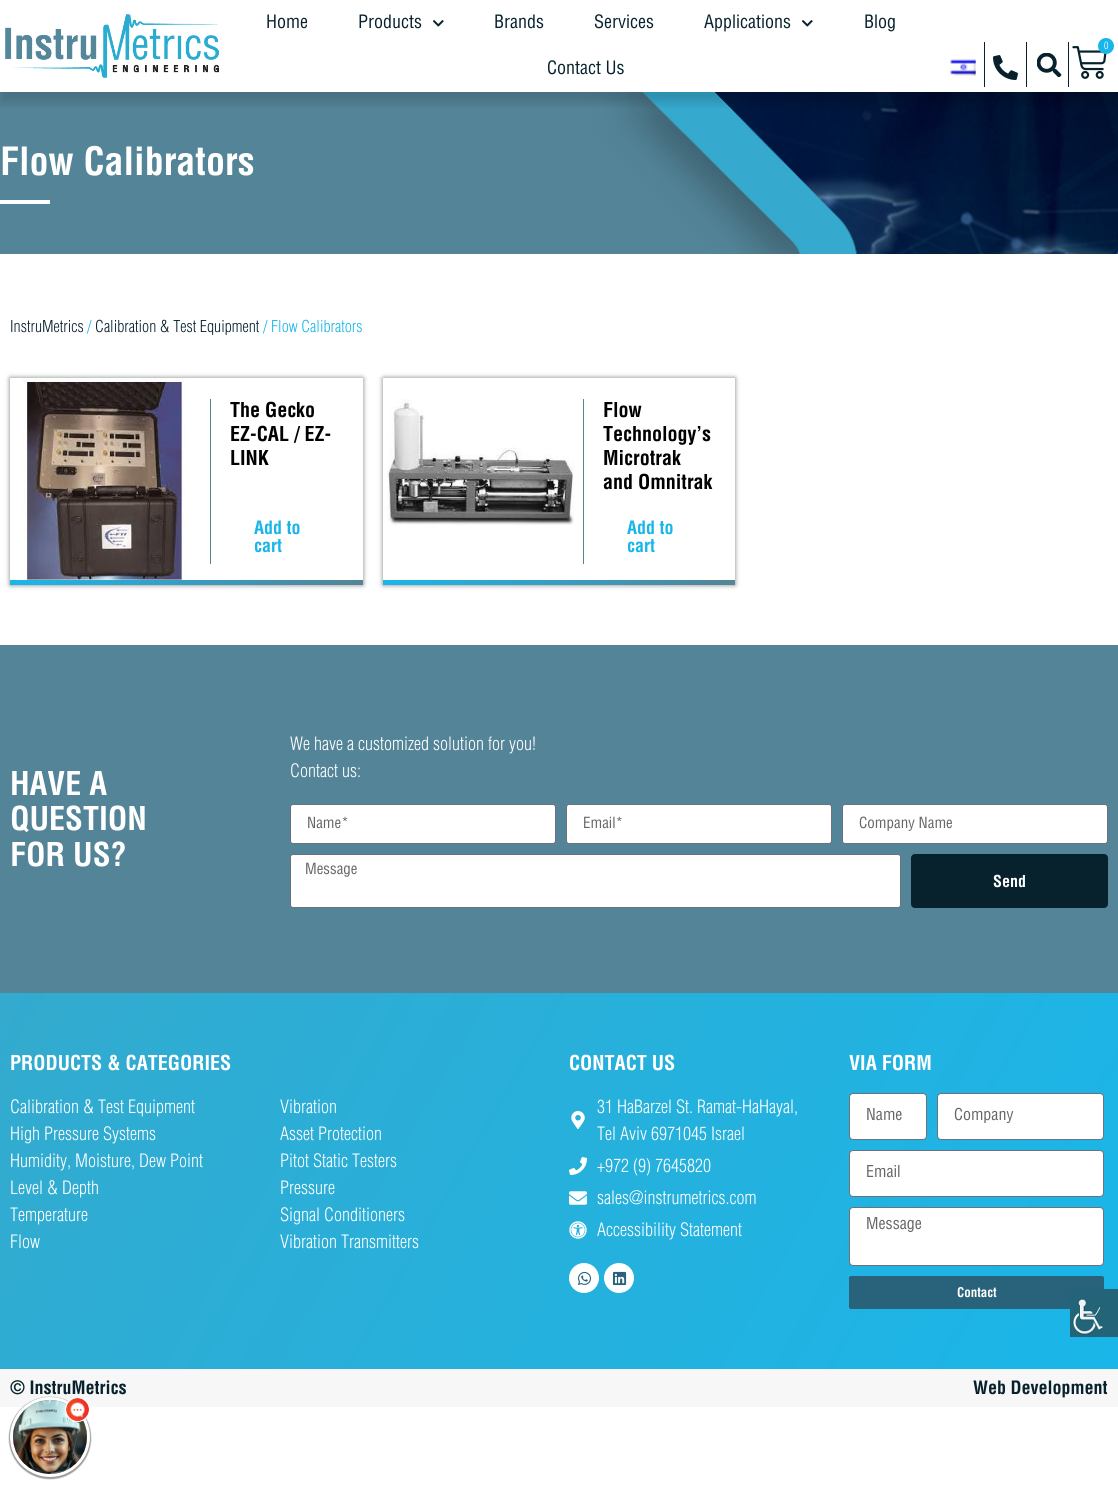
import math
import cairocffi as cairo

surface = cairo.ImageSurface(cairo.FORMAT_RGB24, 1118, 1487)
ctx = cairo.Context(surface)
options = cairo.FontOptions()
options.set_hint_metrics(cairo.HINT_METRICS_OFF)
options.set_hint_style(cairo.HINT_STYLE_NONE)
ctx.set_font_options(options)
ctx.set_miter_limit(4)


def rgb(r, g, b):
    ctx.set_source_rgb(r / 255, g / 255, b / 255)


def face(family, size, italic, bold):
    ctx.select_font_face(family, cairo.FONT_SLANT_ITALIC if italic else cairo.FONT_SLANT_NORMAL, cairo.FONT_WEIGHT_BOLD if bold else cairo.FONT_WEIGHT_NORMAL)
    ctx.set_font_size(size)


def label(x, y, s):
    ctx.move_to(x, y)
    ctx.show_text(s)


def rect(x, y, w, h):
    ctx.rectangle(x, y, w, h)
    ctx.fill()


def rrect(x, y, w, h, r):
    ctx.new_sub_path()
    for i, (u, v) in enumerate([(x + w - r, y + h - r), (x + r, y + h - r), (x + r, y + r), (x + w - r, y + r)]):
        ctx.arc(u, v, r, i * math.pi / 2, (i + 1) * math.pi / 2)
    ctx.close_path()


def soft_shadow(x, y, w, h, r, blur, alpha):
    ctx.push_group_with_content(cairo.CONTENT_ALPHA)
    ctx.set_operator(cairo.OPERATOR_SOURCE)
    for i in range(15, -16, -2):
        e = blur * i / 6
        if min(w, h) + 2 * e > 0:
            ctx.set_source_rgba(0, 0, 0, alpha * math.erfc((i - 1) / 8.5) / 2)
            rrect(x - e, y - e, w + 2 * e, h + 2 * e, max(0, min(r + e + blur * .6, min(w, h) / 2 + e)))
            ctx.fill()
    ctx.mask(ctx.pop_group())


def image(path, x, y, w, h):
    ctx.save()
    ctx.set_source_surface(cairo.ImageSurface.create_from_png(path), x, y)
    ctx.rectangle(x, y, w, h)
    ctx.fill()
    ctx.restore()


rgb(255, 255, 255)
ctx.paint()
image('image6.png', 0, 92, 1118, 162)
ctx.save()
ctx.rectangle(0, 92, 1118, 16)
ctx.clip()
rgb(0, 0, 0)
soft_shadow(0, 10, 1118, 92, 0, 5, 0.16)
ctx.restore()
image('image0.png', 5, 14, 214, 64)
face('Helvetica Medium', 18, 0, 0)
rgb(7, 34, 45)
label(266, 28, 'Home')
label(358, 28, 'Products')
image('image1.png', 433, 20, 11, 7)
label(494, 28, 'Brands')
label(594, 28, 'Services')
label(704, 28, 'Applications')
image('image1.png', 802, 20, 11, 7)
label(864, 28, 'Blog')
label(547, 74, 'Contact Us')
rect(984, 42, 1, 45)
image('image2.png', 950, 59, 26, 17)
rect(1026, 42, 1, 45)
image('image3.png', 993, 55, 25, 25)
rect(1068, 42, 1, 45)
image('image4.png', 1037, 53, 25, 24)
image('image5.png', 1072, 46, 35, 33)
rgb(26, 182, 233)
ctx.arc(1106, 46, 8, 0, 2 * math.pi)
ctx.fill()
face('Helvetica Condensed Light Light', 10, 0, 0)
rgb(255, 255, 255)
label(1104, 49, '0')
face('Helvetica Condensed', 38, 0, 1)
label(0, 175, 'Flow Calibrators')
rect(0, 200, 50, 4)
face('Helvetica Condensed Light Light', 16, 0, 0)
rgb(7, 34, 45)
label(10, 332, 'InstruMetrics')
rgb(26, 182, 233)
label(87, 332, '/')
rgb(7, 34, 45)
label(95, 332, 'Calibration & Test Equipment')
rgb(26, 182, 233)
label(263, 332, '/ Flow Calibrators')
ctx.save()
ctx.set_fill_rule(cairo.FILL_RULE_EVEN_ODD)
ctx.new_path()
ctx.move_to(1, 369)
ctx.line_to(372, 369)
ctx.line_to(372, 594)
ctx.line_to(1, 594)
ctx.close_path()
ctx.move_to(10, 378)
ctx.line_to(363, 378)
ctx.line_to(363, 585)
ctx.line_to(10, 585)
ctx.close_path()
ctx.clip()
rgb(0, 0, 0)
soft_shadow(10, 378, 353, 207, 0, 2.5, 0.5)
ctx.restore()
image('image7.png', 22, 378, 163, 202)
rgb(84, 132, 152)
rect(210, 399, 1, 165)
face('Helvetica Condensed', 20, 0, 1)
rgb(0, 0, 0)
label(230, 417, 'The Gecko')
label(230, 441, 'EZ-CAL / EZ-')
label(230, 465, 'LINK')
face('Helvetica Condensed', 18, 0, 1)
rgb(26, 182, 233)
label(254, 534, 'Add to')
label(254, 552, 'cart')
gradient = cairo.LinearGradient(363, 583, 10, 583)
gradient.add_color_stop_rgba(0, 0.329, 0.518, 0.596, 1)
gradient.add_color_stop_rgba(1, 0.102, 0.714, 0.914, 1)
ctx.set_source(gradient)
rect(10, 580, 353, 5)
ctx.save()
ctx.set_fill_rule(cairo.FILL_RULE_EVEN_ODD)
ctx.new_path()
ctx.move_to(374, 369)
ctx.line_to(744, 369)
ctx.line_to(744, 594)
ctx.line_to(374, 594)
ctx.close_path()
ctx.move_to(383, 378)
ctx.line_to(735, 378)
ctx.line_to(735, 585)
ctx.line_to(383, 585)
ctx.close_path()
ctx.clip()
rgb(0, 0, 0)
soft_shadow(383, 378, 352, 207, 0, 2.5, 0.5)
ctx.restore()
image('image8.png', 387, 399, 188, 126)
rgb(84, 132, 152)
rect(583, 399, 1, 165)
face('Helvetica Condensed', 20, 0, 1)
rgb(0, 0, 0)
label(603, 417, 'Flow')
label(603, 441, 'Technology’s')
label(603, 465, 'Microtrak')
label(603, 489, 'and Omnitrak')
face('Helvetica Condensed', 18, 0, 1)
rgb(26, 182, 233)
label(627, 534, 'Add to')
label(627, 552, 'cart')
gradient = cairo.LinearGradient(735, 583, 383, 583)
gradient.add_color_stop_rgba(0, 0.329, 0.518, 0.596, 1)
gradient.add_color_stop_rgba(1, 0.102, 0.714, 0.914, 1)
ctx.set_source(gradient)
rect(383, 580, 352, 5)
rgb(84, 132, 151)
rect(0, 645, 1118, 348)
face('Helvetica Condensed', 32, 0, 1)
rgb(255, 255, 255)
label(10, 795, 'HAVE A')
label(10, 830, 'QUESTION')
label(10, 866, 'FOR US?')
face('Helvetica Condensed Light Light', 18, 0, 0)
label(290, 750, 'We have a customized solution for you!')
label(290, 777, 'Contact us:')
rrect(290.5, 804.5, 265, 39, 2.5)
ctx.fill_preserve()
rgb(105, 114, 125)
ctx.set_line_width(1)
ctx.stroke()
face('Helvetica Medium', 15, 0, 0)
rgb(102, 102, 102)
label(307, 828, 'Name*')
rgb(255, 255, 255)
rrect(566.5, 804.5, 265, 39, 2.5)
ctx.fill_preserve()
rgb(105, 114, 125)
ctx.stroke()
rgb(102, 102, 102)
label(583, 828, 'Email*')
rgb(255, 255, 255)
rrect(842.5, 804.5, 265, 39, 2.5)
ctx.fill_preserve()
rgb(105, 114, 125)
ctx.stroke()
rgb(102, 102, 102)
label(859, 828, 'Company Name')
rgb(255, 255, 255)
rrect(290.5, 854.5, 610, 53, 2.5)
ctx.fill_preserve()
rgb(105, 114, 125)
ctx.stroke()
rgb(102, 102, 102)
label(305, 874, 'Message')
rgb(7, 34, 45)
rrect(911, 854, 197, 54, 4)
ctx.fill()
face('Helvetica Condensed', 16, 0, 1)
rgb(255, 255, 255)
label(993, 887, 'Send')
gradient = cairo.LinearGradient(58, 892, 1060, 1470)
gradient.add_color_stop_rgba(0, 0.2, 0.667, 0.808, 1)
gradient.add_color_stop_rgba(1, 0.102, 0.714, 0.914, 1)
ctx.set_source(gradient)
rect(0, 993, 1118, 376)
face('Helvetica Condensed', 20, 0, 1)
rgb(255, 255, 255)
label(10, 1070, 'PRODUCTS & CATEGORIES')
face('Helvetica Condensed Light Light', 18, 0, 0)
label(10, 1113, 'Calibration & Test Equipment')
label(10, 1140, 'High Pressure Systems')
label(10, 1167, 'Humidity, Moisture, Dew Point')
label(10, 1194, 'Level & Depth')
label(10, 1221, 'Temperature')
label(10, 1248, 'Flow')
label(280, 1113, 'Vibration')
label(280, 1140, 'Asset Protection')
label(280, 1167, 'Pitot Static Testers')
label(280, 1194, 'Pressure')
label(280, 1221, 'Signal Conditioners')
label(280, 1248, 'Vibration Transmitters')
face('Helvetica Condensed', 20, 0, 1)
label(569, 1070, 'CONTACT US')
image('image9.png', 571, 1111, 14, 18)
face('Helvetica Condensed Light Light', 18, 0, 0)
label(597, 1113, '31 HaBarzel St. Ramat-HaHayal,')
label(597, 1140, 'Tel Aviv 6971045 Israel')
image('image10.png', 569, 1157, 18, 18)
label(597, 1172, '+972 (9) 7645820')
image('image11.png', 569, 1191, 18, 14)
label(597, 1204, 'sales@instrumetrics.com')
image('image12.png', 569, 1221, 18, 18)
label(597, 1236, 'Accessibility Statement')
ctx.new_path()
ctx.arc(584, 1278, 15, 0, 2 * math.pi)
ctx.fill()
image('image13.png', 578, 1271, 14, 14)
ctx.arc(619, 1278, 15, 0, 2 * math.pi)
ctx.fill()
image('image14.png', 612, 1271, 15, 15)
face('Helvetica Condensed', 20, 0, 1)
label(849, 1070, 'VIA FORM')
rrect(849.5, 1093.5, 77, 46, 3.5)
ctx.fill_preserve()
rgb(105, 114, 125)
ctx.stroke()
face('Helvetica Medium', 16, 0, 0)
rgb(102, 102, 102)
label(866, 1120, 'Name')
rgb(255, 255, 255)
rrect(937.5, 1093.5, 166, 46, 3.5)
ctx.fill_preserve()
rgb(105, 114, 125)
ctx.stroke()
rgb(102, 102, 102)
label(954, 1120, 'Company')
rgb(255, 255, 255)
rrect(849.5, 1150.5, 254, 46, 3.5)
ctx.fill_preserve()
rgb(105, 114, 125)
ctx.stroke()
rgb(102, 102, 102)
label(866, 1177, 'Email')
rgb(255, 255, 255)
rrect(849.5, 1207.5, 254, 58, 3.5)
ctx.fill_preserve()
rgb(105, 114, 125)
ctx.stroke()
rgb(102, 102, 102)
label(866, 1229, 'Message')
rgb(41, 98, 123)
rrect(849, 1276, 255, 33, 2)
ctx.fill()
face('Helvetica Condensed', 13, 0, 1)
rgb(255, 255, 255)
label(957, 1297, 'Contact')
rgb(247, 247, 247)
rect(0, 1369, 1118, 38)
face('Helvetica Condensed', 18, 0, 1)
rgb(7, 34, 45)
label(10, 1394, '© InstruMetrics')
label(973, 1394, 'Web Development')
image('image15.png', 1070, 1289, 48, 48)
rgb(0, 0, 0)
soft_shadow(9, 1397, 82, 82, 41, 0.5, 0.4)
ctx.arc(50, 1437, 38.5, 0, 2 * math.pi)
rgb(255, 255, 255)
ctx.set_line_width(3)
ctx.stroke()
image('image16.png', 13, 1400, 74, 74)
ctx.arc(77.5, 1409.5, 12, 0, 2 * math.pi)
ctx.fill_preserve()
ctx.set_line_width(1)
ctx.stroke()
image('image17.png', 66, 1398, 23, 23)
surface.write_to_png('render.png')
